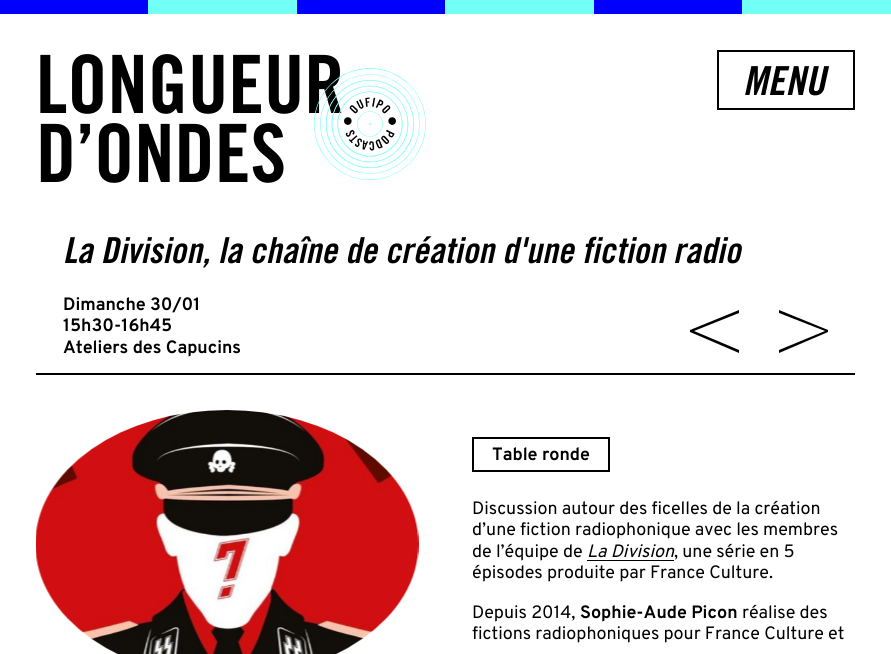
import math
import cairocffi as cairo

surface = cairo.ImageSurface(cairo.FORMAT_RGB24, 891, 654)
ctx = cairo.Context(surface)
options = cairo.FontOptions()
options.set_hint_metrics(cairo.HINT_METRICS_OFF)
options.set_hint_style(cairo.HINT_STYLE_NONE)
ctx.set_font_options(options)
ctx.set_miter_limit(4)


def rgb(r, g, b):
    ctx.set_source_rgb(r / 255, g / 255, b / 255)


def face(family, size, italic, bold):
    ctx.select_font_face(family, cairo.FONT_SLANT_ITALIC if italic else cairo.FONT_SLANT_NORMAL, cairo.FONT_WEIGHT_BOLD if bold else cairo.FONT_WEIGHT_NORMAL)
    ctx.set_font_size(size)


def label(x, y, s):
    ctx.move_to(x, y)
    ctx.show_text(s)


def rect(x, y, w, h):
    ctx.rectangle(x, y, w, h)
    ctx.fill()


def image(path, x, y, w, h):
    ctx.save()
    ctx.set_source_surface(cairo.ImageSurface.create_from_png(path), x, y)
    ctx.rectangle(x, y, w, h)
    ctx.fill()
    ctx.restore()


rgb(255, 255, 255)
ctx.paint()
rgb(0, 0, 255)
rect(0, 0, 148, 14)
rgb(114, 255, 245)
rect(148, 0, 149, 14)
rgb(0, 0, 255)
rect(297, 0, 148, 14)
rgb(114, 255, 245)
rect(445, 0, 149, 14)
rgb(0, 0, 255)
rect(594, 0, 148, 14)
rgb(114, 255, 245)
rect(742, 0, 149, 14)
face('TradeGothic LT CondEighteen', 80.5, 0, 1)
rgb(0, 0, 0)
label(36, 113, 'LONGUEUR')
label(36, 182, 'D’ONDES')
image('image0.png', 314, 68, 112, 112)
ctx.rectangle(718, 51, 136, 58)
ctx.stroke()
face('TradeGothic LT CondEighteen', 40, 1, 1)
label(743, 95, 'MENU')
rect(36, 373, 819, 2)
face('TradeGothic LT CondEighteen', 35.8, 1, 1)
label(63, 263, 'La Division, la chaîne de création d\'une fiction radio')
face('Overpass', 17.9, 0, 1)
label(63, 310, 'Dimanche 30/01')
label(63, 331, '15h30-16h45')
label(63, 353, 'Ateliers des Capucins')
ctx.set_fill_rule(cairo.FILL_RULE_EVEN_ODD)
ctx.new_path()
ctx.move_to(739, 310)
ctx.line_to(690, 330)
ctx.line_to(690, 332)
ctx.line_to(739, 353)
ctx.line_to(739, 350)
ctx.line_to(694, 331)
ctx.line_to(739, 313)
ctx.close_path()
ctx.fill()
ctx.new_path()
ctx.move_to(779, 310)
ctx.line_to(828, 330)
ctx.line_to(828, 332)
ctx.line_to(779, 353)
ctx.line_to(779, 350)
ctx.line_to(825, 331)
ctx.line_to(779, 313)
ctx.close_path()
ctx.fill()
image('image1.png', 36, 410, 382, 244)
image('image2.png', 418, 530, 1, 28)
ctx.rectangle(473, 438, 136, 33)
ctx.stroke()
label(492, 460, 'Table ronde')
face('Overpass', 17.9, 0, 0)
label(472, 514, 'Discussion autour des ficelles de la création')
label(472, 535, 'd’une fiction radiophonique avec les membres')
label(472, 557, 'de l’équipe de')
face('Overpass', 17.9, 1, 0)
label(587, 557, 'La Division')
rect(587, 560, 87, 1)
face('Overpass', 17.9, 0, 0)
label(674, 557, ', une série en 5')
label(472, 578, 'épisodes produite par France Culture.')
label(472, 618, 'Depuis 2014,')
face('Overpass', 17.9, 0, 1)
label(580, 618, 'Sophie-Aude Picon')
face('Overpass', 17.9, 0, 0)
label(742, 618, 'réalise des')
label(472, 639, 'fictions radiophoniques pour France Culture et')
surface.write_to_png('render.png')
